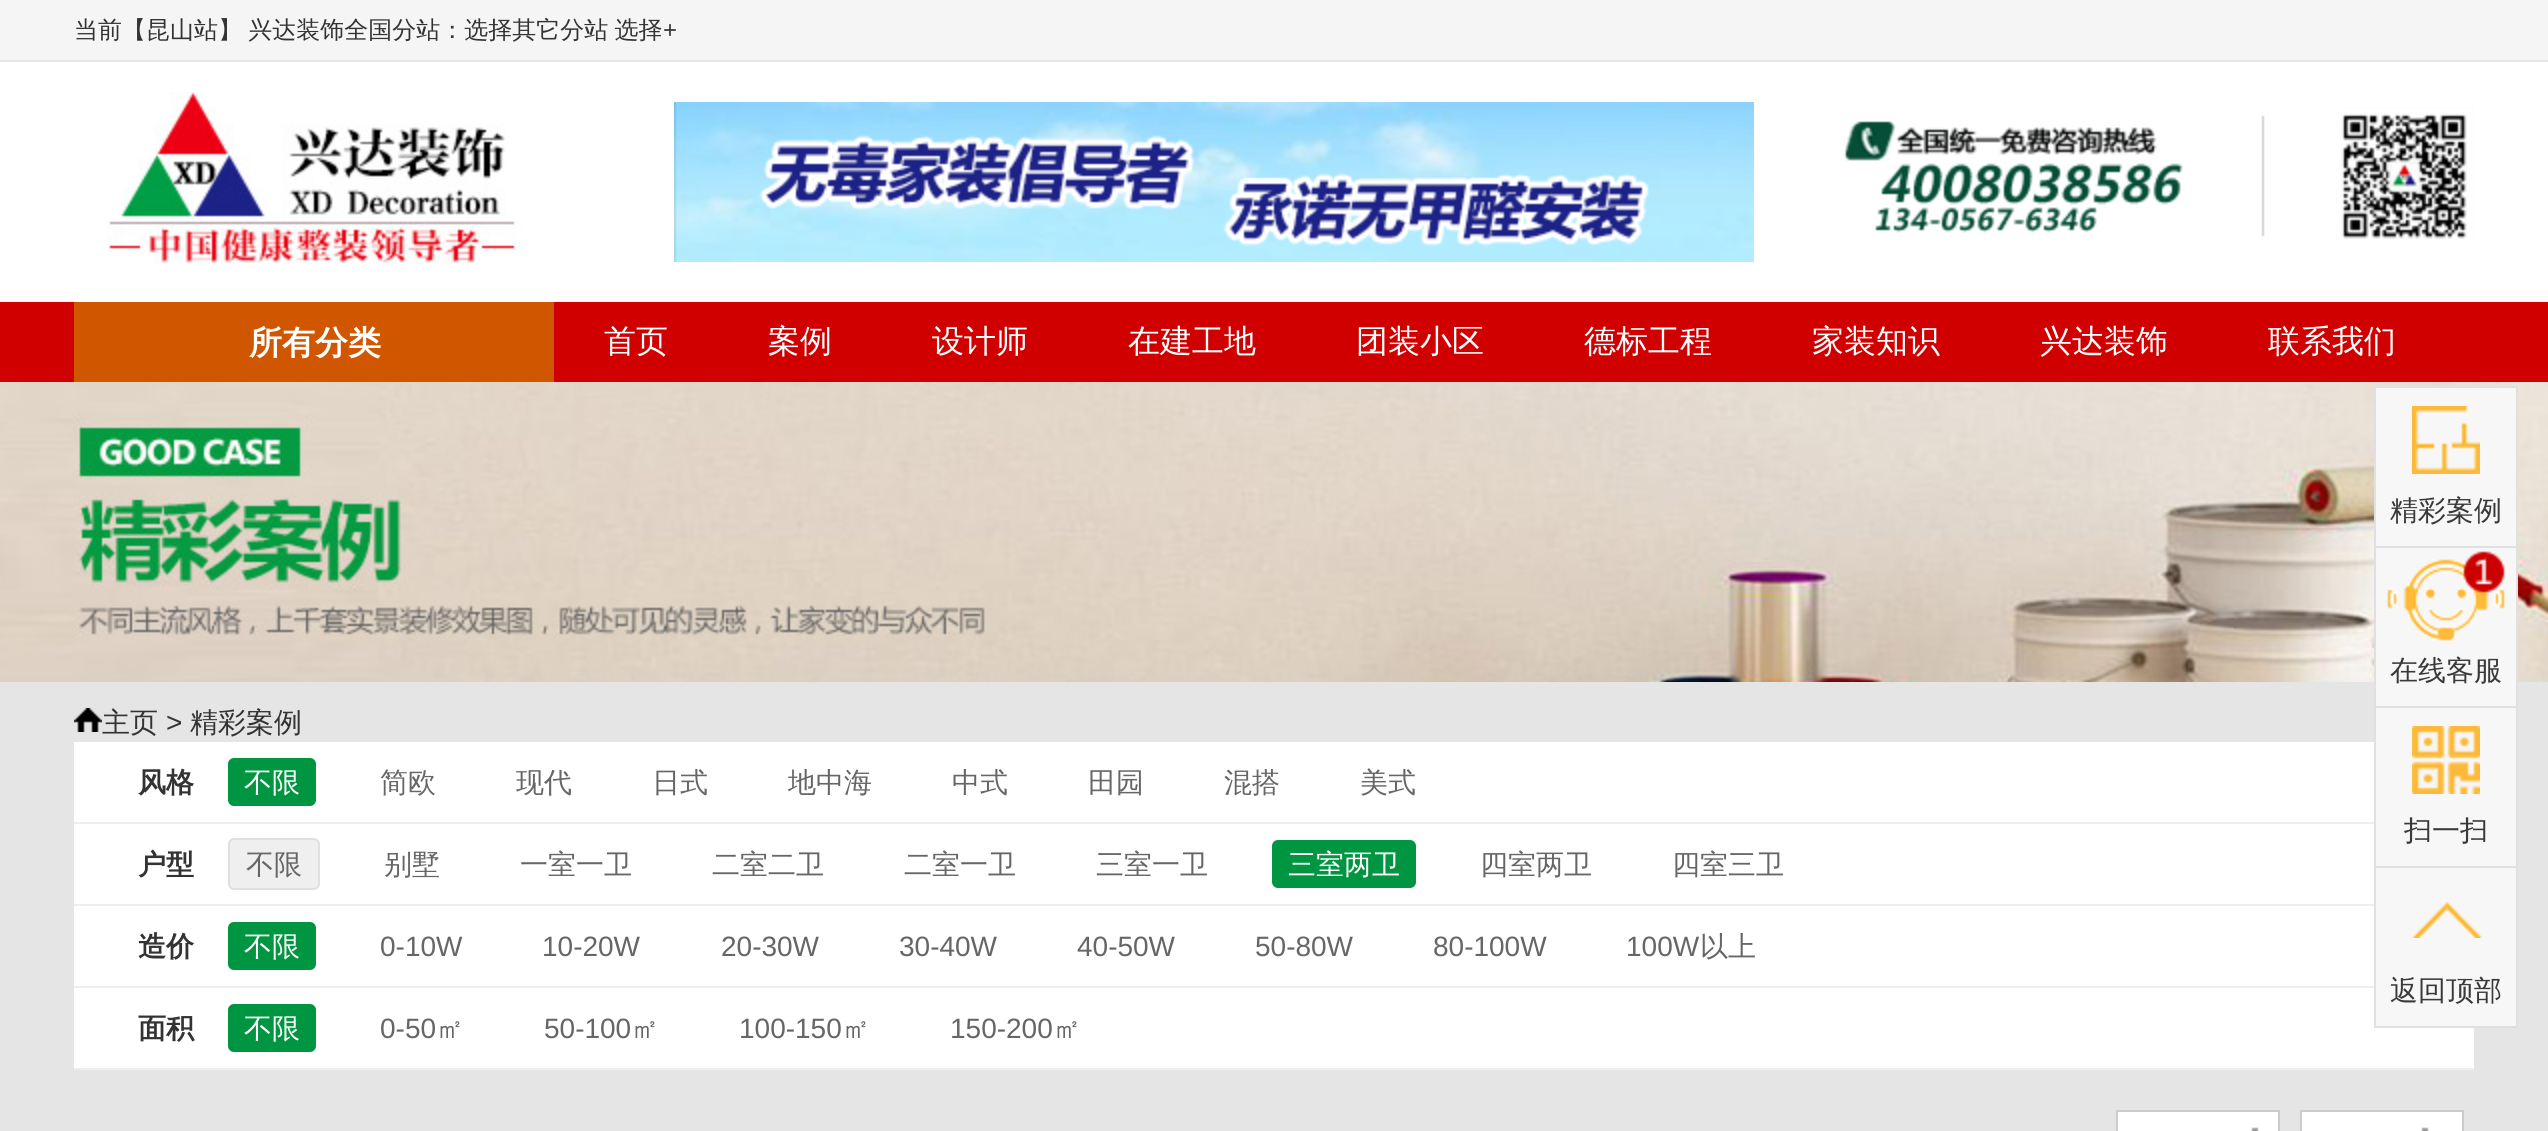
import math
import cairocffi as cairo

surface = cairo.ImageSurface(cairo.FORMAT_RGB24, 2548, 1131)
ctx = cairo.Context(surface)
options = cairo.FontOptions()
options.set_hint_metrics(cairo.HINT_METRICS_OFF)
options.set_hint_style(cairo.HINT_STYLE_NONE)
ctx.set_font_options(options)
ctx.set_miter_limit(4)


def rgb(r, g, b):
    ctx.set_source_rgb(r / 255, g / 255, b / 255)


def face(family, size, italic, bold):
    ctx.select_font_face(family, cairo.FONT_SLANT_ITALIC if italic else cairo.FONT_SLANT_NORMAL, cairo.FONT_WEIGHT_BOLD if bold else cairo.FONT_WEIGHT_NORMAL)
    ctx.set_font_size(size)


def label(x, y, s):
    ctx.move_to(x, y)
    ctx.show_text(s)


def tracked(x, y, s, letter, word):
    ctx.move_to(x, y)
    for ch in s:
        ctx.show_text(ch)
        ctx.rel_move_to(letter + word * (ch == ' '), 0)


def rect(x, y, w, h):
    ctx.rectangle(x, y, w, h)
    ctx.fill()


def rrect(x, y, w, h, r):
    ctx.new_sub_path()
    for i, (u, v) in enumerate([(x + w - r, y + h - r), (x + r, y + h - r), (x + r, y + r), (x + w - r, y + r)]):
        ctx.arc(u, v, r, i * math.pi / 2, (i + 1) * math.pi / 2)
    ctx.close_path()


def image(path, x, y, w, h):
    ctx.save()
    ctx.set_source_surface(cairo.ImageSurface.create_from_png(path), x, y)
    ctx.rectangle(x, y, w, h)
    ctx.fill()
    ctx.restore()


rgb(229, 229, 229)
ctx.paint()
rgb(245, 245, 245)
rect(0, 0, 2548, 60)
face('WenQuanYi Zen Hei Medium', 24, 0, 0)
rgb(51, 51, 51)
label(74, 38, '当前【昆山站')
tracked(218, 38, '】 兴达装饰全国分站：选择其它分站 选择', 0, -1)
face('Liberation Sans', 24, 0, 0)
label(663, 38, '+')
rgb(255, 255, 255)
rect(0, 62, 2548, 240)
image('image0.png', 107, 92, 415, 172)
image('image1.png', 674, 102, 1080, 160)
image('image2.png', 1844, 106, 630, 133)
rgb(208, 0, 0)
rect(0, 302, 2548, 80)
rgb(208, 86, 0)
rect(74, 302, 480, 80)
face('WenQuanYi Zen Hei', 33, 0, 1)
rgb(255, 255, 255)
label(249, 354, '所有分类')
face('WenQuanYi Zen Hei Medium', 32, 0, 0)
label(604, 352, '首页')
label(768, 352, '案例')
label(932, 352, '设计师')
label(1128, 352, '在建工地')
label(1356, 352, '团装小区')
label(1584, 352, '德标工程')
label(1812, 352, '家装知识')
label(2040, 352, '兴达装饰')
label(2268, 352, '联系我们')
image('image3.png', 0, 382, 2548, 300)
image('image4.png', 74, 708, 28, 24)
face('WenQuanYi Zen Hei Medium', 28, 0, 0)
rgb(51, 51, 51)
label(102, 732, '主页')
face('Liberation Sans', 28, 0, 0)
label(166, 732, '>')
face('WenQuanYi Zen Hei Medium', 28, 0, 0)
label(190, 732, '精彩案例')
rgb(255, 255, 255)
rect(74, 742, 2400, 326)
rgb(247, 247, 248)
rect(2376, 388, 140, 638)
rgb(224, 224, 224)
rect(2374, 386, 144, 2)
rect(2516, 386, 2, 642)
rect(2374, 386, 2, 642)
rect(2376, 546, 140, 2)
image('image5.png', 2412, 406, 68, 68)
rgb(57, 57, 57)
label(2390, 520, '精彩案例')
rgb(224, 224, 224)
rect(2376, 706, 140, 2)
image('image6.png', 2387, 551, 118, 90)
rgb(57, 57, 57)
label(2390, 680, '在线客服')
rgb(224, 224, 224)
rect(2376, 866, 140, 2)
image('image7.png', 2412, 726, 68, 68)
rgb(57, 57, 57)
label(2404, 840, '扫一扫')
rgb(224, 224, 224)
rect(2376, 1026, 140, 2)
image('image8.png', 2412, 902, 70, 36)
rgb(57, 57, 57)
label(2390, 1000, '返回顶部')
rgb(238, 238, 238)
rect(74, 822, 2300, 2)
face('WenQuanYi Zen Hei', 28, 0, 1)
rgb(51, 51, 51)
label(138, 792, '风格')
rgb(0, 150, 65)
rrect(228, 758, 88, 48, 6)
ctx.fill()
face('WenQuanYi Zen Hei Medium', 28, 0, 0)
rgb(255, 255, 255)
label(244, 792, '不限')
rgb(102, 102, 102)
label(380, 792, '简欧')
label(516, 792, '现代')
label(652, 792, '日式')
label(788, 792, '地中海')
label(952, 792, '中式')
label(1088, 792, '田园')
label(1224, 792, '混搭')
label(1360, 792, '美式')
rgb(238, 238, 238)
rect(74, 904, 2300, 2)
face('WenQuanYi Zen Hei', 28, 0, 1)
rgb(51, 51, 51)
label(138, 874, '户型')
rgb(239, 239, 239)
rrect(229, 839, 90, 50, 5)
ctx.fill_preserve()
rgb(224, 224, 224)
ctx.stroke()
face('WenQuanYi Zen Hei Medium', 28, 0, 0)
rgb(102, 102, 102)
label(246, 874, '不限')
label(384, 874, '别墅')
label(520, 874, '一室一卫')
label(712, 874, '二室二卫')
label(904, 874, '二室一卫')
label(1096, 874, '三室一卫')
rgb(0, 150, 65)
rrect(1272, 840, 144, 48, 6)
ctx.fill()
rgb(255, 255, 255)
label(1288, 874, '三室两卫')
rgb(102, 102, 102)
label(1480, 874, '四室两卫')
label(1672, 874, '四室三卫')
rgb(238, 238, 238)
rect(74, 986, 2300, 2)
face('WenQuanYi Zen Hei', 28, 0, 1)
rgb(51, 51, 51)
label(138, 956, '造价')
rgb(0, 150, 65)
rrect(228, 922, 88, 48, 6)
ctx.fill()
face('WenQuanYi Zen Hei Medium', 28, 0, 0)
rgb(255, 255, 255)
label(244, 956, '不限')
face('Liberation Sans', 28, 0, 0)
rgb(102, 102, 102)
label(380, 956, '0-10W')
label(542, 956, '10-20W')
label(721, 956, '20-30W')
label(899, 956, '30-40W')
label(1077, 956, '40-50W')
label(1255, 956, '50-80W')
label(1433, 956, '80-100W')
label(1626, 956, '100W')
face('WenQuanYi Zen Hei Medium', 28, 0, 0)
label(1700, 956, '以上')
rgb(238, 238, 238)
rect(74, 1068, 2400, 2)
face('WenQuanYi Zen Hei', 28, 0, 1)
rgb(51, 51, 51)
label(138, 1038, '面积')
rgb(0, 150, 65)
rrect(228, 1004, 88, 48, 6)
ctx.fill()
face('WenQuanYi Zen Hei Medium', 28, 0, 0)
rgb(255, 255, 255)
label(244, 1038, '不限')
face('Liberation Sans', 28, 0, 0)
rgb(102, 102, 102)
label(380, 1038, '0-50')
face('WenQuanYi Zen Hei Medium', 28, 0, 0)
label(436, 1038, '㎡')
face('Liberation Sans', 28, 0, 0)
label(544, 1038, '50-100')
face('WenQuanYi Zen Hei Medium', 28, 0, 0)
label(631, 1038, '㎡')
face('Liberation Sans', 28, 0, 0)
label(739, 1038, '100-150')
face('WenQuanYi Zen Hei Medium', 28, 0, 0)
label(842, 1038, '㎡')
face('Liberation Sans', 28, 0, 0)
label(950, 1038, '150-200')
face('WenQuanYi Zen Hei Medium', 28, 0, 0)
label(1053, 1038, '㎡')
rgb(255, 255, 255)
ctx.rectangle(2117, 1111, 162, 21)
ctx.fill_preserve()
rgb(204, 204, 204)
ctx.stroke()
image('image9.png', 2251, 1127, 8, 4)
rgb(255, 255, 255)
ctx.rectangle(2301, 1111, 162, 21)
ctx.fill_preserve()
rgb(204, 204, 204)
ctx.stroke()
image('image9.png', 2421, 1127, 8, 4)
surface.write_to_png('render.png')
